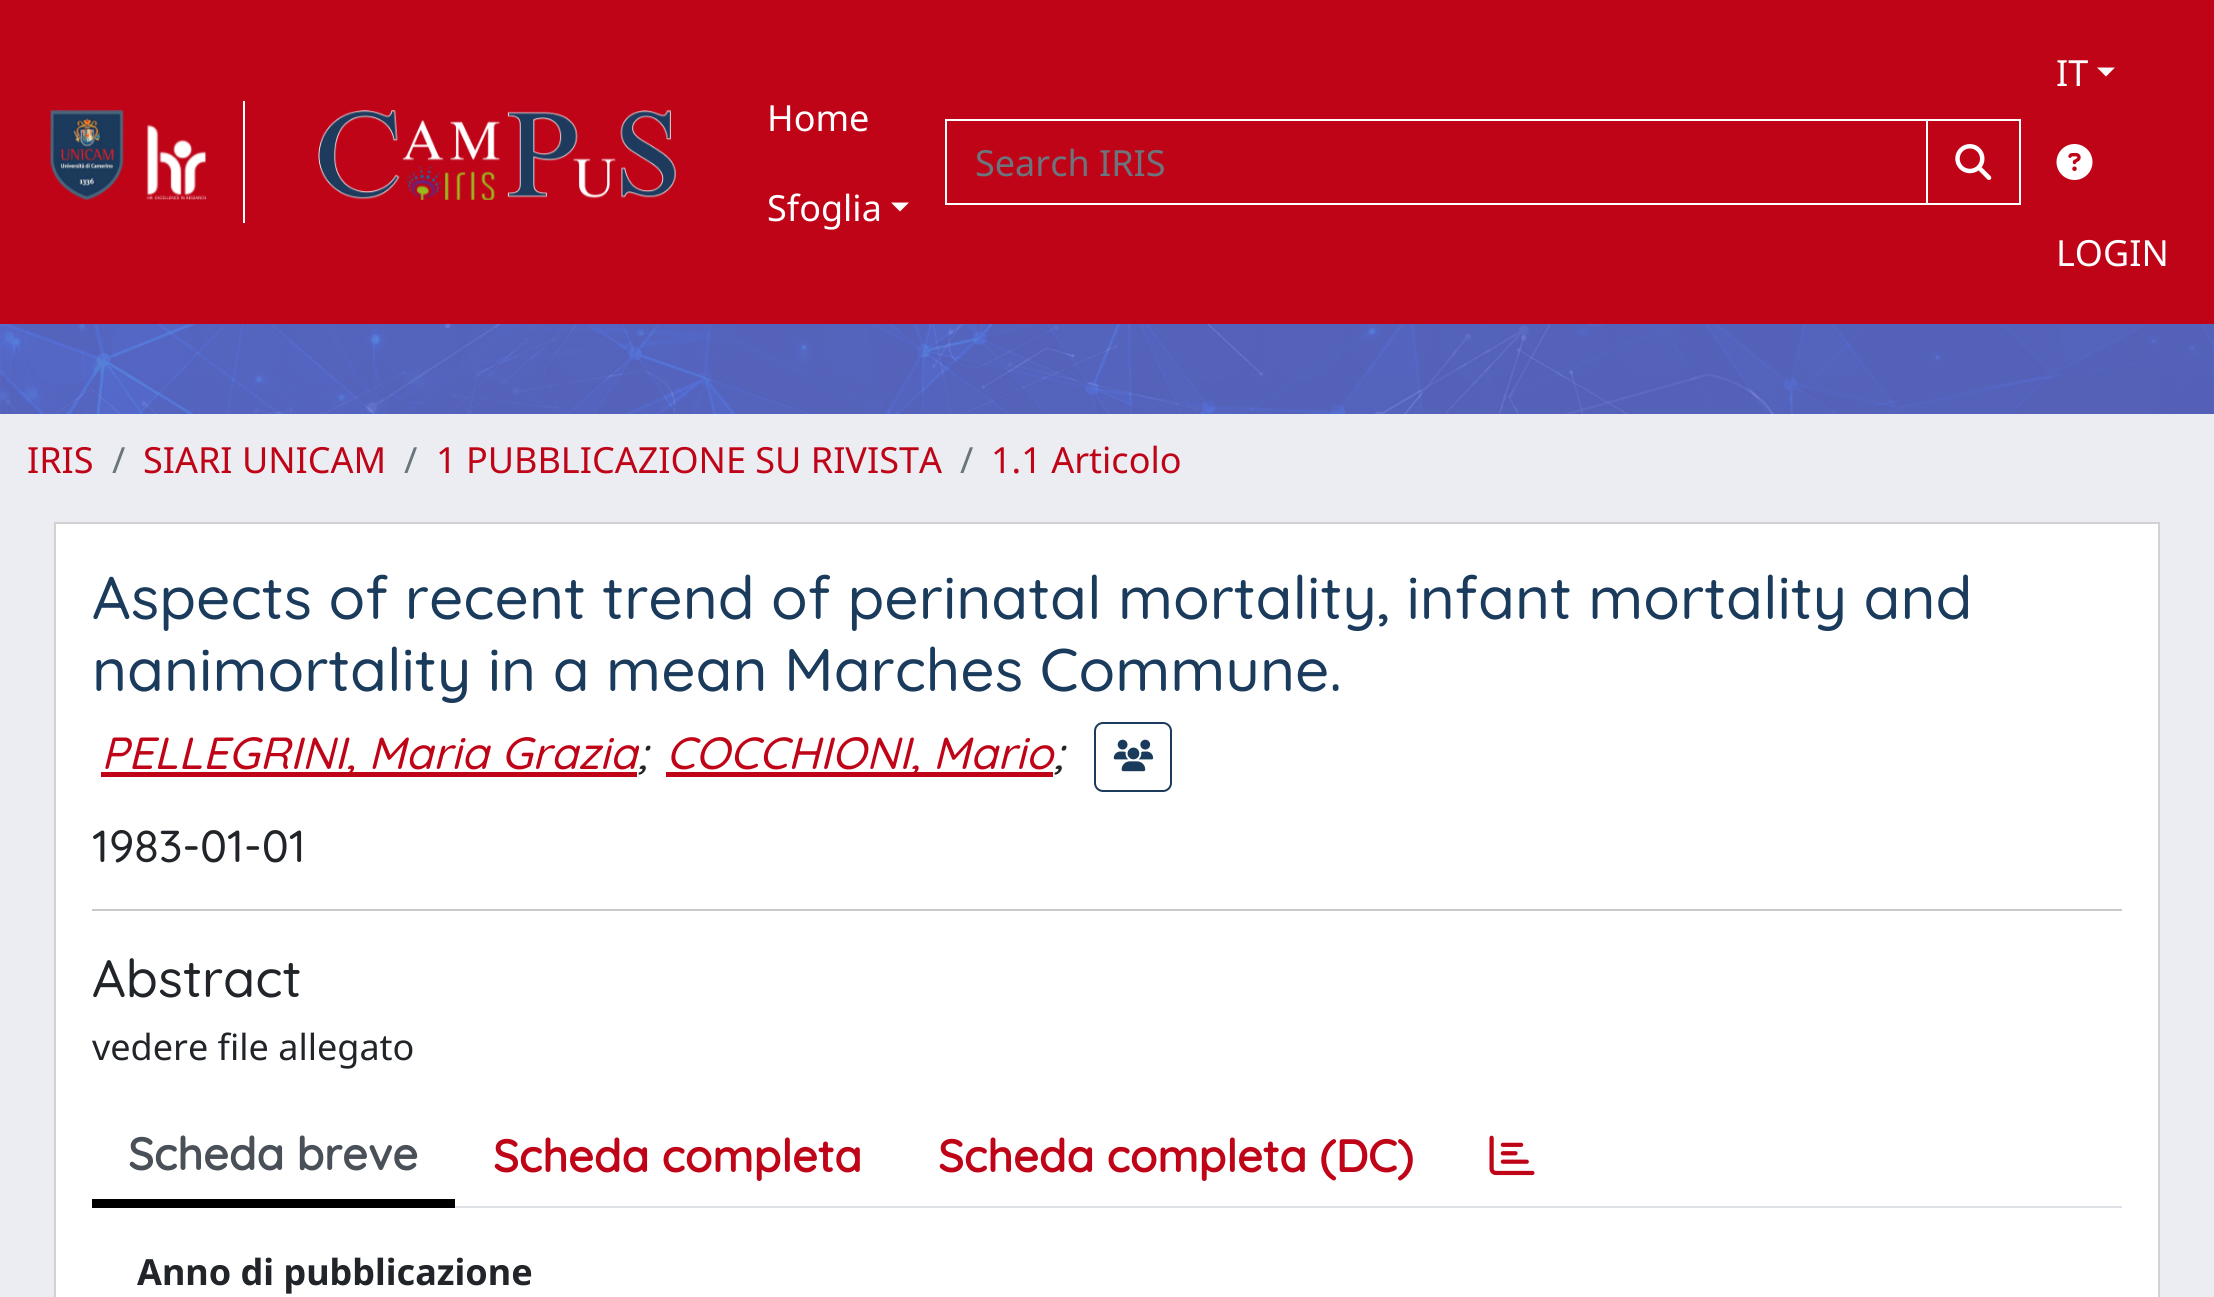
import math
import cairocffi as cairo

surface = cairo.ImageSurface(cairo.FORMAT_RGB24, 2214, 1297)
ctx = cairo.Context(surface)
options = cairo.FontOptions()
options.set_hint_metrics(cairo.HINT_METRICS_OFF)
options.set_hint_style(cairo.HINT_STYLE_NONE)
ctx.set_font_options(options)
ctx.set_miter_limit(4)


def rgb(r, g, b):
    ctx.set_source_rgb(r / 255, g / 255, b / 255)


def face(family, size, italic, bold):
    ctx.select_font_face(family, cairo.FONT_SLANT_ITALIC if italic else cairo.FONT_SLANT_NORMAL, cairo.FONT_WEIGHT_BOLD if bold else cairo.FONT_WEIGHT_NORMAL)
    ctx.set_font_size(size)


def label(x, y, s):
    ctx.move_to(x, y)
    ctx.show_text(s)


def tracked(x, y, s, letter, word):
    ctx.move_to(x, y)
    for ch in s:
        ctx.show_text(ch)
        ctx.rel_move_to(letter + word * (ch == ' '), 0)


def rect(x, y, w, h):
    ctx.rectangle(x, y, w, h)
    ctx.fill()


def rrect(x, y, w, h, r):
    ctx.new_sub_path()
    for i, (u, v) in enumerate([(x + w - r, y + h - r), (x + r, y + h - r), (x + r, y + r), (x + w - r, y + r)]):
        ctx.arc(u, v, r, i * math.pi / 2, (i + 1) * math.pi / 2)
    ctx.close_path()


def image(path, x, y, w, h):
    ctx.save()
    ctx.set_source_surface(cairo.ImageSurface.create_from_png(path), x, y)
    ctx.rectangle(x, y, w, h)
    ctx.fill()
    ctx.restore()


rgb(236, 237, 242)
ctx.paint()
rgb(192, 4, 24)
rect(0, 0, 2214, 324)
rgb(255, 255, 255)
rect(243, 101, 2, 122)
image('image0.png', 50, 110, 157, 90)
image('image1.png', 318, 110, 359, 90)
face('Noto Sans', 36, 0, 0)
label(767, 131, 'Home')
label(767, 221, 'Sfoglia')
ctx.new_path()
ctx.move_to(891, 202.5)
ctx.line_to(909, 202.5)
ctx.line_to(900, 211.5)
ctx.close_path()
ctx.fill()
ctx.rectangle(946, 120, 981, 84)
ctx.stroke()
rgb(108, 117, 125)
label(975, 176, 'Search IRIS')
ctx.rectangle(1927, 120, 93, 84)
rgb(255, 255, 255)
ctx.stroke()
image('image2.png', 1955, 144, 37, 36)
label(2056, 86, 'IT')
ctx.new_path()
ctx.move_to(2097, 67.5)
ctx.line_to(2115, 67.5)
ctx.line_to(2106, 76.5)
ctx.close_path()
ctx.fill()
image('image3.png', 2056, 144, 37, 36)
label(2056, 266, 'LOGIN')
image('image4.png', 0, 324, 2214, 90)
rgb(192, 4, 24)
label(27, 473, 'IRIS')
rgb(108, 117, 125)
label(112, 473, '/')
rgb(192, 4, 24)
label(143, 473, 'SIARI UNICAM')
rgb(108, 117, 125)
label(404, 473, '/')
rgb(192, 4, 24)
label(436, 473, '1 PUBBLICAZIONE SU RIVISTA')
rgb(108, 117, 125)
label(960, 473, '/')
rgb(192, 4, 24)
label(991, 473, '1.1 Articolo')
rgb(255, 255, 255)
ctx.rectangle(55, 523, 2104, 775)
ctx.fill_preserve()
rgb(210, 210, 210)
ctx.stroke()
face('Quicksand Medium', 60.1, 0, 0)
rgb(27, 59, 93)
tracked(92, 619, 'Aspects of recent trend of perinatal mortality, infant mortality and', 0, -0.1)
label(92, 691, 'nanimortality in a mean Marches Commune.')
rgb(192, 4, 24)
rect(101, 772, 536, 5)
face('Quicksand Medium', 45, 1, 0)
label(101, 769, 'PELLEGRINI, Maria Grazia')
rgb(33, 37, 41)
label(637, 769, ';')
rgb(192, 4, 24)
rect(666, 772, 387, 5)
label(666, 769, 'COCCHIONI, Mario')
rgb(33, 37, 41)
label(1053, 769, ';')
rrect(1095, 723, 76, 68, 8)
rgb(27, 59, 93)
ctx.stroke()
image('image5.png', 1113, 739, 41, 33)
face('Quicksand Medium', 45, 0, 0)
rgb(33, 37, 41)
label(92, 862, '1983-01-01')
rgb(200, 201, 202)
rect(92, 909, 2030, 2)
face('Quicksand Medium', 52.5, 0, 0)
rgb(33, 37, 41)
label(92, 997, 'Abstract')
face('Noto Sans', 36, 0, 0)
label(92, 1060, 'vedere file allegato')
rgb(222, 226, 230)
rect(455, 1206, 1667, 2)
rgb(0, 0, 0)
rect(92, 1199, 363, 9)
face('Quicksand', 45, 0, 1)
rgb(73, 80, 87)
label(128, 1170, 'Scheda breve')
rgb(192, 4, 24)
label(493, 1172, 'Scheda completa')
label(938, 1172, 'Scheda completa (DC)')
image('image6.png', 1489, 1135, 46, 41)
face('Noto Sans', 36, 0, 1)
rgb(33, 37, 41)
label(137, 1285, 'Anno di pubblicazione')
surface.write_to_png('render.png')
